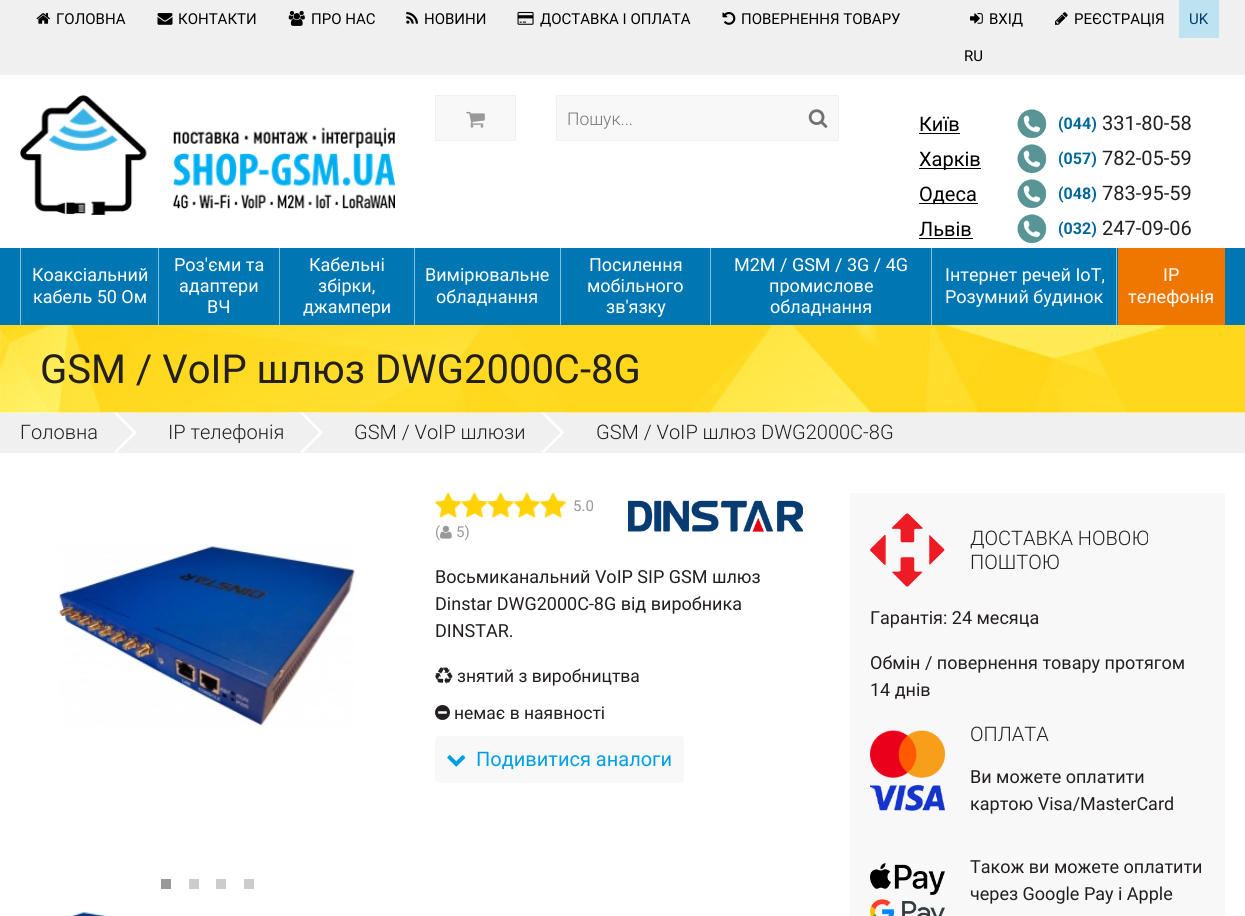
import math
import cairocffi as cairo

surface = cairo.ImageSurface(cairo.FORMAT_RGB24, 1245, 916)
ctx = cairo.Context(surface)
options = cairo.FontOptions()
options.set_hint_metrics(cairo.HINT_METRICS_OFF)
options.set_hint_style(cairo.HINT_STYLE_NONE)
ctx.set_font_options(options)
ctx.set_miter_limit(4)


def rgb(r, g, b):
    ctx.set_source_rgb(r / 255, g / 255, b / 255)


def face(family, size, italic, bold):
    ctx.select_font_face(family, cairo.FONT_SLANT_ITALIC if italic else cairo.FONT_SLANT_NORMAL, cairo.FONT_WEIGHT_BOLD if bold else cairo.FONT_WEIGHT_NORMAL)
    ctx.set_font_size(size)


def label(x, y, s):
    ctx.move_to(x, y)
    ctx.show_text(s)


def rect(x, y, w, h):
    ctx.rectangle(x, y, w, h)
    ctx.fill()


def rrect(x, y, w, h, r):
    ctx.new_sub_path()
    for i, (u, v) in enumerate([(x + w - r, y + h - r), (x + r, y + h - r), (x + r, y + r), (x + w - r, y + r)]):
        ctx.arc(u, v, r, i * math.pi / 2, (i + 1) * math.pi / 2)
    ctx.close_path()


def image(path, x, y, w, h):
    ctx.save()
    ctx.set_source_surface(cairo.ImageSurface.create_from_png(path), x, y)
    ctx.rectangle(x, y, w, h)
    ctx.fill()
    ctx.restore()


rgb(255, 255, 255)
ctx.paint()
rgb(240, 240, 240)
rect(0, 0, 1245, 75)
image('image0.png', 36, 13, 14, 11)
face('Roboto', 15, 0, 0)
rgb(0, 0, 0)
label(56, 24, 'ГОЛОВНА')
image('image1.png', 157, 13, 16, 12)
label(178, 24, 'КОНТАКТИ')
image('image2.png', 288, 10, 17, 16)
label(311, 24, 'ПРО НАС')
image('image3.png', 406, 12, 12, 12)
label(424, 24, 'НОВИНИ')
image('image4.png', 517, 11, 17, 14)
label(540, 24, 'ДОСТАВКА І ОПЛАТА')
image('image5.png', 722, 12, 14, 13)
label(741, 24, 'ПОВЕРНЕННЯ ТОВАРУ')
image('image6.png', 970, 13, 13, 11)
label(989, 24, 'ВХІД')
image('image7.png', 1055, 12, 13, 13)
label(1074, 24, 'РЕЄСТРАЦІЯ')
rgb(189, 227, 243)
rect(1179, 0, 40, 38)
rgb(0, 61, 102)
label(1189, 24, 'UK')
rgb(0, 0, 0)
label(964, 61, 'RU')
image('image8.png', 20, 95, 375, 120)
rgb(248, 248, 248)
ctx.rectangle(435.5, 95.5, 80, 45)
ctx.fill_preserve()
rgb(240, 240, 240)
ctx.set_line_width(1)
ctx.stroke()
image('image9.png', 466, 111, 19, 17)
rgb(248, 248, 248)
rrect(556.5, 95.5, 282, 45, 2)
ctx.fill_preserve()
rgb(240, 240, 240)
ctx.stroke()
face('Roboto Light', 17.5, 0, 0)
rgb(117, 117, 117)
label(567, 125, 'Пошук...')
image('image10.png', 808, 109, 20, 19)
face('Roboto', 20, 0, 0)
rgb(0, 0, 0)
label(919, 131, 'Київ')
rect(919, 133, 41, 1)
image('image11.png', 1017, 109, 30, 29)
face('Roboto', 16, 0, 1)
rgb(0, 103, 153)
label(1058, 129, '(044)')
face('Roboto', 20, 0, 0)
rgb(35, 31, 32)
label(1102, 130, '331-80-58')
rgb(0, 0, 0)
rect(919, 168, 62, 1)
label(919, 166, 'Харків')
image('image11.png', 1017, 144, 30, 29)
face('Roboto', 16, 0, 1)
rgb(0, 103, 153)
label(1058, 164, '(057)')
face('Roboto', 20, 0, 0)
rgb(35, 31, 32)
label(1102, 165, '782-05-59')
rgb(0, 0, 0)
rect(919, 203, 59, 1)
label(919, 201, 'Одеса')
image('image11.png', 1017, 179, 30, 29)
face('Roboto', 16, 0, 1)
rgb(0, 103, 153)
label(1058, 199, '(048)')
face('Roboto', 20, 0, 0)
rgb(35, 31, 32)
label(1102, 200, '783-95-59')
rgb(0, 0, 0)
label(919, 236, 'Львів')
rect(919, 238, 54, 1)
image('image11.png', 1017, 214, 30, 29)
face('Roboto', 16, 0, 1)
rgb(0, 103, 153)
label(1058, 234, '(032)')
face('Roboto', 20, 0, 0)
rgb(35, 31, 32)
label(1102, 235, '247-09-06')
rgb(0, 119, 179)
rect(0, 248, 1245, 77)
rgb(123, 196, 223)
rect(158, 248, 1, 77)
rect(20, 248, 1, 77)
face('Roboto', 18, 0, 0)
rgb(255, 255, 255)
label(32, 281, 'Коаксіальний')
label(33, 303, 'кабель 50 Ом')
rgb(123, 196, 223)
rect(279, 248, 1, 77)
rgb(255, 255, 255)
label(174, 271, 'Роз\'єми та')
label(179, 292, 'адаптери')
label(207, 313, 'ВЧ')
rgb(123, 196, 223)
rect(414, 248, 1, 77)
rgb(255, 255, 255)
label(309, 271, 'Кабельні')
label(318, 292, 'збірки,')
label(303, 313, 'джампери')
rgb(123, 196, 223)
rect(560, 248, 1, 77)
rgb(255, 255, 255)
label(425, 281, 'Вимірювальне')
label(436, 303, 'обладнання')
rgb(123, 196, 223)
rect(710, 248, 1, 77)
rgb(255, 255, 255)
label(589, 271, 'Посилення')
label(587, 292, 'мобільного')
label(606, 313, 'зв\'язку')
rgb(123, 196, 223)
rect(931, 248, 1, 77)
rgb(255, 255, 255)
label(734, 271, 'M2M / GSM / 3G / 4G')
label(769, 292, 'промислове')
label(770, 313, 'обладнання')
rgb(123, 196, 223)
rect(1116, 248, 1, 77)
rgb(255, 255, 255)
label(945, 281, 'Інтернет речей IoT,')
label(945, 303, 'Розумний будинок')
rgb(239, 119, 0)
rect(1118, 248, 107, 77)
rgb(255, 255, 255)
label(1163, 281, 'IP')
label(1128, 303, 'телефонія')
image('image12.png', 0, 325, 1245, 88)
face('Roboto', 40, 0, 0)
rgb(35, 31, 32)
label(40, 383, 'GSM / VoIP шлюз DWG2000C-8G')
rgb(240, 240, 240)
rect(0, 413, 1245, 40)
image('image13.png', 101, 412, 37, 41)
face('Roboto Light', 20, 0, 0)
rgb(35, 31, 32)
label(20, 439, 'Головна')
image('image14.png', 287, 412, 37, 41)
label(168, 439, 'IP телефонія')
image('image15.png', 528, 412, 37, 41)
label(354, 439, 'GSM / VoIP шлюзи')
label(596, 439, 'GSM / VoIP шлюз DWG2000C-8G')
image('image16.png', 59, 545, 297, 181)
rgb(153, 153, 153)
rect(161, 879, 10, 10)
rgb(204, 204, 204)
rect(189, 879, 10, 10)
rect(216, 879, 10, 10)
rect(244, 879, 10, 10)
image('image17.png', 68, 911, 44, 5)
image('image18.png', 435, 492, 132, 26)
image('image19.png', 435, 492, 132, 26)
face('Roboto', 15, 0, 0)
rgb(153, 153, 153)
label(573, 511, '5.0')
label(435, 537, '(')
image('image20.png', 440, 525, 12, 14)
label(456, 537, '5)')
image('image21.png', 628, 500, 175, 32)
face('Roboto', 18, 0, 0)
rgb(35, 31, 32)
label(435, 583, 'Восьмиканальний VoIP SIP GSM шлюз')
label(435, 610, 'Dinstar DWG2000C-8G від виробника')
label(435, 637, 'DINSTAR.')
image('image22.png', 435, 667, 18, 17)
face('Roboto', 17.5, 0, 0)
label(457, 682, 'знятий з виробництва')
image('image23.png', 435, 705, 15, 15)
label(454, 719, 'немає в наявності')
rgb(248, 248, 248)
rrect(435, 736, 249, 47, 4)
ctx.fill()
image('image24.png', 447, 755, 19, 12)
face('Roboto', 20, 0, 0)
rgb(0, 159, 227)
label(476, 766, 'Подивитися аналоги')
rgb(248, 248, 248)
rect(850, 493, 375, 423)
image('image25.png', 870, 513, 75, 74)
face('Roboto Light', 20, 0, 0)
rgb(35, 31, 32)
label(970, 545, 'ДОСТАВКА НОВОЮ')
label(970, 569, 'ПОШТОЮ')
face('Roboto', 18, 0, 0)
label(870, 624, 'Гарантія: 24 месяца')
label(870, 669, 'Обмін / повернення товару протягом')
label(870, 696, '14 днів')
image('image26.png', 870, 730, 75, 81)
face('Roboto Light', 20, 0, 0)
label(970, 741, 'ОПЛАТА')
face('Roboto', 18, 0, 0)
label(970, 783, 'Ви можете оплатити')
label(970, 810, 'картою Visa/MasterCard')
image('image27.png', 870, 863, 75, 53)
label(970, 873, 'Також ви можете оплатити')
label(970, 900, 'через Google Pay і Apple')
surface.write_to_png('render.png')
